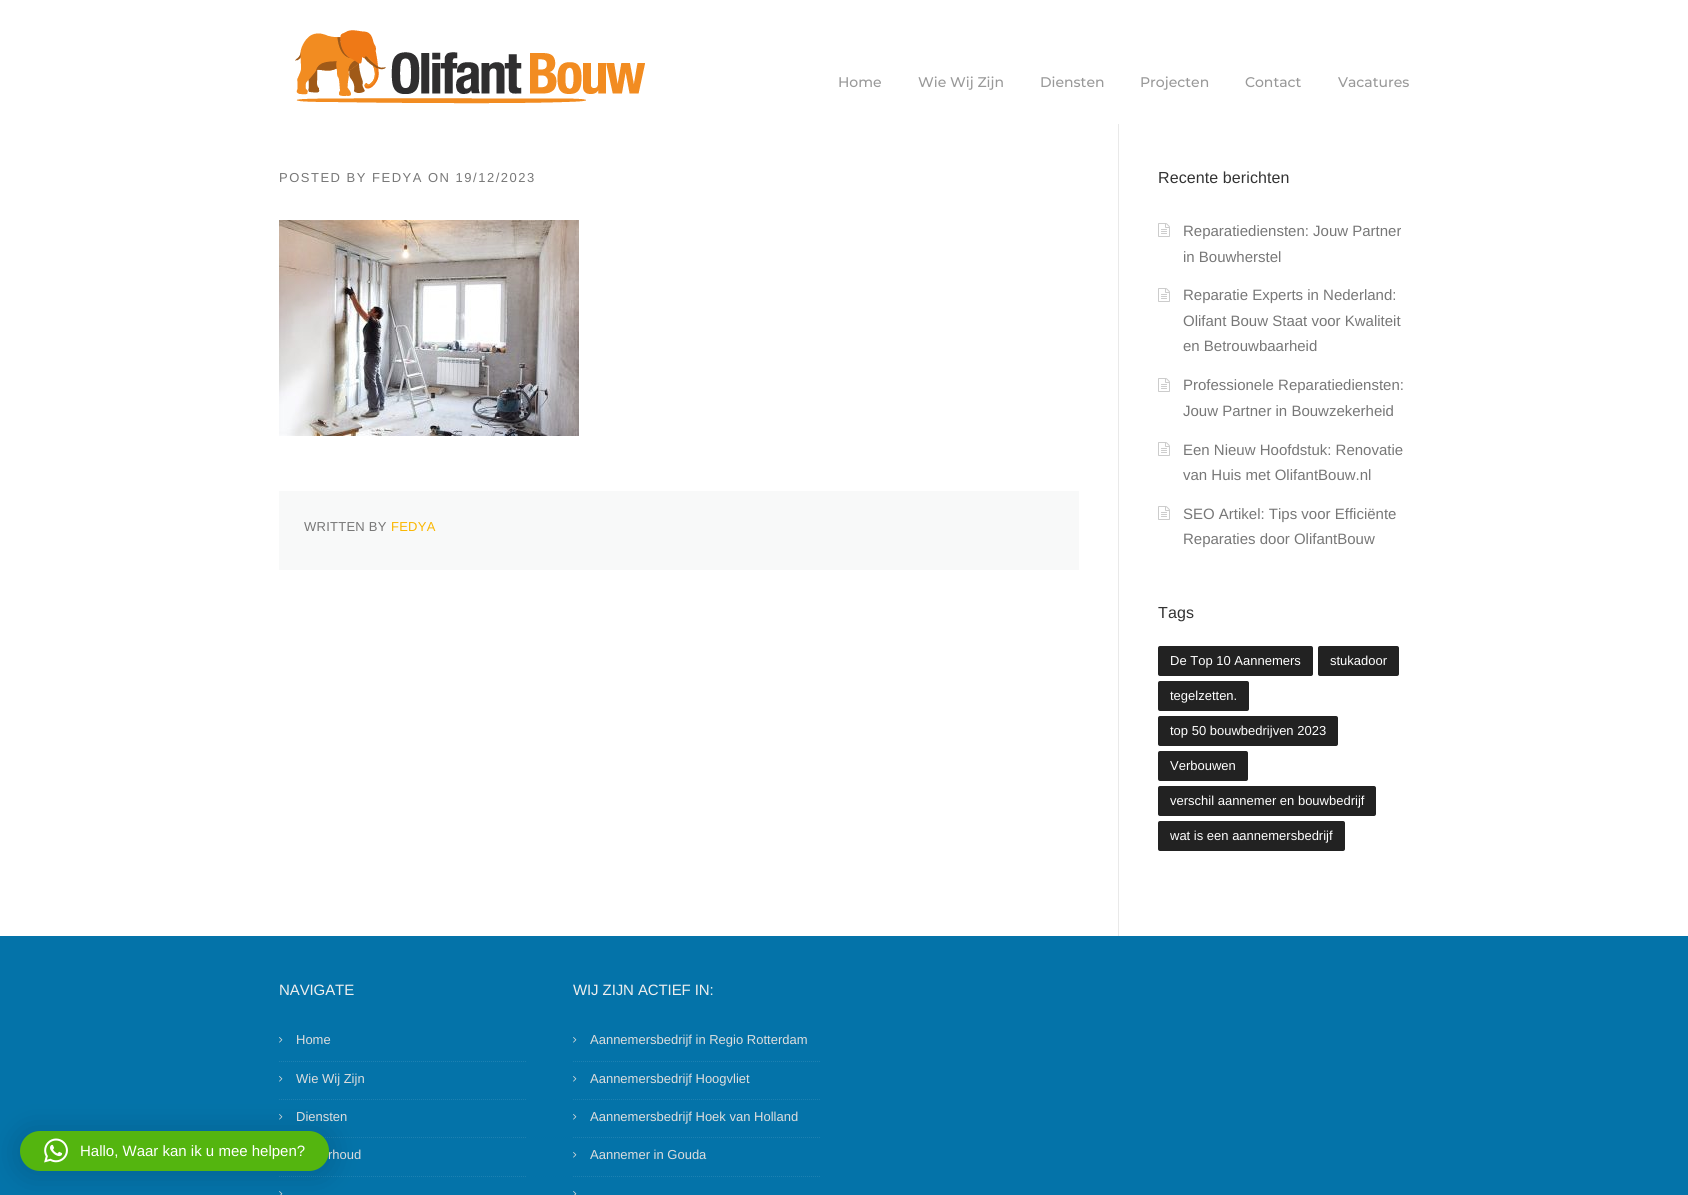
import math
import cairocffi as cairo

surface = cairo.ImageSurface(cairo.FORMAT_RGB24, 1688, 1195)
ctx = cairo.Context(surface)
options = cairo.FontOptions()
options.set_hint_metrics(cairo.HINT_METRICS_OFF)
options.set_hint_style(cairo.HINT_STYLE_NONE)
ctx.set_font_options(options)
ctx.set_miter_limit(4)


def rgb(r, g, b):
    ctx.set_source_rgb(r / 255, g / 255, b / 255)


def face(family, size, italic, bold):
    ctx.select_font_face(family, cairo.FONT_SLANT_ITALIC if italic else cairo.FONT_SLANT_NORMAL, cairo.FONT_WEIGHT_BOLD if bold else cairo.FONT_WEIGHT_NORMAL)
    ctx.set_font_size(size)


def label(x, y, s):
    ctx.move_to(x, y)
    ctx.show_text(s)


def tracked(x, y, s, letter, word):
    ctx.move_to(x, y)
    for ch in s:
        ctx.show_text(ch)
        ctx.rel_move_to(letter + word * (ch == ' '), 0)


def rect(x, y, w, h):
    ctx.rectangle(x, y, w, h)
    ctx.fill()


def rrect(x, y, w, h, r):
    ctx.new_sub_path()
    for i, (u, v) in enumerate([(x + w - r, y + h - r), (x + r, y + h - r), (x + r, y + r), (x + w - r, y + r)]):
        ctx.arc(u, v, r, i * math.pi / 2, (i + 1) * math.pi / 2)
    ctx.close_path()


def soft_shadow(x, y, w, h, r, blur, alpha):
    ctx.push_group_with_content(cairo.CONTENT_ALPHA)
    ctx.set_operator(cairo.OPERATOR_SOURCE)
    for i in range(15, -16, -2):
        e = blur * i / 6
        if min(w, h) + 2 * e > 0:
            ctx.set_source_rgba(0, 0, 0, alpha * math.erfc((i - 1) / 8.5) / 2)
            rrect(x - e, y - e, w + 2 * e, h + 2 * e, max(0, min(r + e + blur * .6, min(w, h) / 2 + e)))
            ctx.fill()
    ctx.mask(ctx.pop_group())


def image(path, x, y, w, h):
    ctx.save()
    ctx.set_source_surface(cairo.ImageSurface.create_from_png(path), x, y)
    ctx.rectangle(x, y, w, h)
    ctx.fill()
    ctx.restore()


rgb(255, 255, 255)
ctx.paint()
rgb(4, 115, 169)
rect(0, 936, 1688, 259)
ctx.new_path()
ctx.move_to(279, 1099.5)
ctx.line_to(527, 1099.5)
rgb(29, 129, 178)
ctx.set_line_width(1)
ctx.set_dash([1, 1])
ctx.stroke()
ctx.new_path()
ctx.move_to(279, 1137.5)
ctx.line_to(527, 1137.5)
ctx.stroke()
image('image4.png', 279, 1114, 4, 6)
ctx.new_path()
ctx.move_to(279, 1176.5)
ctx.line_to(527, 1176.5)
ctx.stroke()
image('image5.png', 279, 1191, 4, 4)
rgb(0, 0, 0)
soft_shadow(20, 1133, 309, 40, 20, 16, 0.16)
face('Liberation Sans', 13, 0, 0)
rgb(221, 221, 221)
label(328, 1159, 'rhoud')
rgb(84, 181, 15)
rrect(20, 1131, 309, 40, 20)
ctx.fill()
image('image0.png', 44, 1138, 24, 25)
face('Liberation Sans', 15, 0, 0)
rgb(255, 255, 255)
label(80, 1156, 'Hallo, Waar kan ik u mee helpen?')
image('image1.png', 295, 30, 350, 74)
face('Montserrat Medium', 14, 0, 0)
rgb(153, 153, 153)
label(838, 87, 'Home')
label(918, 87, 'Wie Wij Zijn')
label(1040, 87, 'Diensten')
label(1140, 87, 'Projecten')
label(1245, 87, 'Contact')
label(1338, 87, 'Vacatures')
face('Liberation Sans', 13, 0, 0)
rgb(119, 119, 119)
tracked(279, 182, 'POSTED BY FEDYA ON 19/12/2023', 1.5, 0)
image('image2.png', 279, 220, 300, 216)
rgb(248, 249, 249)
rect(279, 491, 800, 79)
rgb(119, 119, 119)
tracked(304, 531, 'WRITTEN BY', 0.25, 0)
rgb(250, 183, 2)
tracked(391, 531, 'FEDYA', 0.25, 0)
rgb(233, 233, 233)
rect(1118, 124, 1, 812)
face('Liberation Sans', 16, 0, 0)
rgb(51, 51, 51)
tracked(1158, 183, 'Recente berichten', 0.1, 0)
image('image3.png', 1158, 223, 12, 14)
face('Liberation Sans', 15, 0, 0)
rgb(119, 119, 119)
label(1183, 236, 'Reparatiediensten: Jouw Partner')
label(1183, 262, 'in Bouwherstel')
image('image3.png', 1158, 288, 12, 14)
label(1183, 300, 'Reparatie Experts in Nederland:')
label(1183, 326, 'Olifant Bouw Staat voor Kwaliteit')
label(1183, 351, 'en Betrouwbaarheid')
image('image3.png', 1158, 378, 12, 14)
label(1183, 390, 'Professionele Reparatiediensten:')
label(1183, 416, 'Jouw Partner in Bouwzekerheid')
image('image3.png', 1158, 442, 12, 14)
label(1183, 455, 'Een Nieuw Hoofdstuk: Renovatie')
label(1183, 480, 'van Huis met OlifantBouw.nl')
image('image3.png', 1158, 506, 12, 14)
label(1183, 519, 'SEO Artikel: Tips voor Efficiënte')
label(1183, 544, 'Reparaties door OlifantBouw')
face('Liberation Sans', 16, 0, 0)
rgb(51, 51, 51)
tracked(1158, 618, 'Tags', 0.1, 0)
rgb(34, 34, 34)
rrect(1158, 646, 155, 30, 2)
ctx.fill()
face('Liberation Sans', 13, 0, 0)
rgb(255, 255, 255)
label(1170, 665, 'De Top 10 Aannemers')
rgb(34, 34, 34)
rrect(1318, 646, 81, 30, 2)
ctx.fill()
rgb(255, 255, 255)
label(1330, 665, 'stukadoor')
rgb(34, 34, 34)
rrect(1158, 681, 91, 30, 2)
ctx.fill()
rgb(255, 255, 255)
label(1170, 700, 'tegelzetten.')
rgb(34, 34, 34)
rrect(1158, 716, 180, 30, 2)
ctx.fill()
rgb(255, 255, 255)
label(1170, 735, 'top 50 bouwbedrijven 2023')
rgb(34, 34, 34)
rrect(1158, 751, 90, 30, 2)
ctx.fill()
rgb(255, 255, 255)
label(1170, 770, 'Verbouwen')
rgb(34, 34, 34)
rrect(1158, 786, 218, 30, 2)
ctx.fill()
rgb(255, 255, 255)
label(1170, 805, 'verschil aannemer en bouwbedrijf')
rgb(34, 34, 34)
rrect(1158, 821, 187, 30, 2)
ctx.fill()
rgb(255, 255, 255)
label(1170, 840, 'wat is een aannemersbedrijf')
face('Liberation Sans', 15, 0, 0)
rgb(238, 238, 238)
tracked(279, 995, 'NAVIGATE', -0.1, 0)
ctx.new_path()
ctx.move_to(279, 1061.5)
ctx.line_to(527, 1061.5)
rgb(29, 129, 178)
ctx.stroke()
image('image4.png', 279, 1037, 4, 6)
face('Liberation Sans', 13, 0, 0)
rgb(221, 221, 221)
label(296, 1044, 'Home')
image('image4.png', 279, 1076, 4, 6)
label(296, 1083, 'Wie Wij Zijn')
label(296, 1121, 'Diensten')
face('Liberation Sans', 15, 0, 0)
rgb(238, 238, 238)
tracked(573, 995, 'WIJ ZIJN ACTIEF IN:', -0.1, 0)
ctx.new_path()
ctx.move_to(573, 1061.5)
ctx.line_to(821, 1061.5)
rgb(29, 129, 178)
ctx.stroke()
image('image4.png', 573, 1037, 4, 6)
face('Liberation Sans', 13, 0, 0)
rgb(221, 221, 221)
label(590, 1044, 'Aannemersbedrijf in Regio Rotterdam')
ctx.new_path()
ctx.move_to(573, 1099.5)
ctx.line_to(821, 1099.5)
rgb(29, 129, 178)
ctx.stroke()
image('image4.png', 573, 1076, 4, 6)
rgb(221, 221, 221)
label(590, 1083, 'Aannemersbedrijf Hoogvliet')
ctx.new_path()
ctx.move_to(573, 1137.5)
ctx.line_to(821, 1137.5)
rgb(29, 129, 178)
ctx.stroke()
image('image4.png', 573, 1114, 4, 6)
rgb(221, 221, 221)
label(590, 1121, 'Aannemersbedrijf Hoek van Holland')
ctx.new_path()
ctx.move_to(573, 1176.5)
ctx.line_to(821, 1176.5)
rgb(29, 129, 178)
ctx.stroke()
image('image4.png', 573, 1152, 4, 6)
rgb(221, 221, 221)
label(590, 1159, 'Aannemer in Gouda')
image('image5.png', 573, 1191, 4, 4)
surface.write_to_png('render.png')
